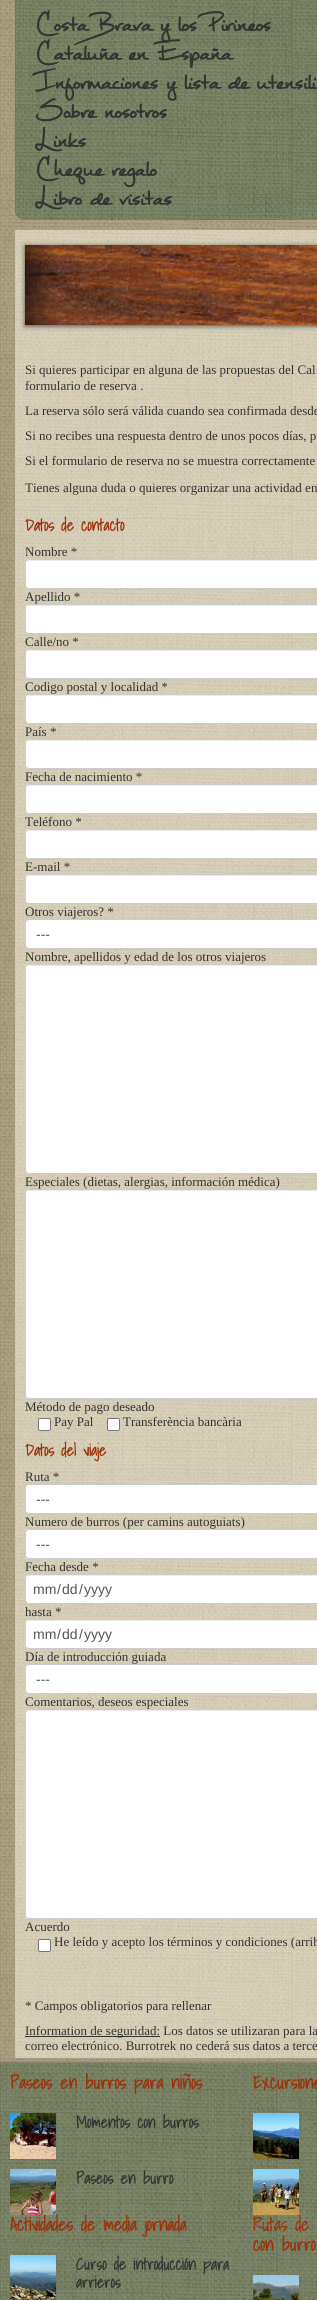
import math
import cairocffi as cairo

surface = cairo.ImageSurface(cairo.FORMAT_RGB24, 317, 2300)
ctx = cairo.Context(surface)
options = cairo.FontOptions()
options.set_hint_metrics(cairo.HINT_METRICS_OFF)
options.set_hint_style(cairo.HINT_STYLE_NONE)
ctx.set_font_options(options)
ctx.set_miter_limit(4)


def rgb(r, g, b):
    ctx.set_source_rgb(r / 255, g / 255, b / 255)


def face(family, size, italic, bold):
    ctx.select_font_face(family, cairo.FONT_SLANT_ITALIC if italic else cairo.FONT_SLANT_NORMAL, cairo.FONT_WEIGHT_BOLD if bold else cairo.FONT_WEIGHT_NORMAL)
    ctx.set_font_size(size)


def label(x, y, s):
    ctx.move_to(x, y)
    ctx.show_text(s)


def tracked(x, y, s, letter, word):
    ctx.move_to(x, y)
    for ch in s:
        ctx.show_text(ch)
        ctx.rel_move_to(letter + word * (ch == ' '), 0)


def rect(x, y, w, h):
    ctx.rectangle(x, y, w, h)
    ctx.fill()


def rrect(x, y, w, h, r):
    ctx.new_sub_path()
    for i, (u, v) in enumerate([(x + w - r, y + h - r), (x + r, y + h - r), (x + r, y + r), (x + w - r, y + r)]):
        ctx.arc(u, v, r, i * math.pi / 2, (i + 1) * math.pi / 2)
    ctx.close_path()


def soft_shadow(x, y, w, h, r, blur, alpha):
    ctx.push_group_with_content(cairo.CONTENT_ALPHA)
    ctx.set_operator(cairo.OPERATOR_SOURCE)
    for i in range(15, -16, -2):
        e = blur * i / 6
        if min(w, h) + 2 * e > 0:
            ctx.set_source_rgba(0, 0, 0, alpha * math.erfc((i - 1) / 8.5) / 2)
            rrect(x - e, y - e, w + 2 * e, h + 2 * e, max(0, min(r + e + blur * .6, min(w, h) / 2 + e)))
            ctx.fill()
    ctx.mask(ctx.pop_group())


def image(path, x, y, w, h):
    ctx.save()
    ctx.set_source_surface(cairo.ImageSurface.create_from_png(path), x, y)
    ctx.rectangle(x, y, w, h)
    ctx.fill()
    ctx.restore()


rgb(255, 255, 255)
ctx.paint()
image('image0.png', 0, 0, 317, 2063)
rgb(103, 113, 76)
rrect(15, -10, 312, 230, 10)
ctx.fill()
image('image1.png', 15, 0, 302, 220)
face('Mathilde', 42, 0, 1)
rgb(51, 51, 51)
tracked(35, 31, 'Costa Brava y los Pirineos', 0, -4)
tracked(35, 60, 'Cataluña en España', 0, -4)
tracked(35, 89, 'Informaciones y lista de utensili', 0, -4)
tracked(35, 118, 'Sobre nosotros', 0, -4)
label(35, 147, 'Links')
tracked(35, 176, 'Cheque regalo', 0, -4)
tracked(35, 205, 'Libro de visitas', 0, -4)
image('image2.png', 15, 230, 302, 1753)
rgb(74, 74, 74)
soft_shadow(25, 246, 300, 80, 0, 2.5, 1)
image('image3.png', 25, 245, 292, 80)
face('Liberation Serif', 13, 0, 0)
rgb(51, 51, 51)
label(25, 374, 'Si quieres participar en alguna de las propuestas del Cal')
label(25, 390, 'formulario de reserva .')
label(25, 415, 'La reserva sólo será válida cuando sea confirmada desde')
label(25, 440, 'Si no recibes una respuesta dentro de unos pocos días, p')
label(25, 465, 'Si el formulario de reserva no se muestra correctamente')
label(25, 492, 'Tienes alguna duda o quieres organizar una actividad en')
face('Shadows Into Light', 16, 0, 1)
rgb(154, 49, 10)
label(25, 531, 'Datos de contacto')
face('Liberation Serif', 13, 0, 0)
rgb(51, 51, 51)
label(25, 556, 'Nombre *')
rgb(255, 255, 255)
ctx.new_path()
ctx.move_to(29, 559)
ctx.line_to(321, 559)
ctx.line_to(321, 589)
ctx.line_to(29, 589)
ctx.curve_to(27, 589, 25, 587, 25, 585)
ctx.line_to(25, 563)
ctx.curve_to(25, 561, 27, 559, 29, 559)
ctx.close_path()
ctx.fill()
rgb(236, 236, 236)
ctx.new_path()
ctx.move_to(29, 561)
ctx.line_to(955, 561)
ctx.curve_to(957, 561, 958, 562, 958, 564)
ctx.curve_to(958, 562, 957, 560, 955, 560)
ctx.line_to(29, 560)
ctx.curve_to(27, 560, 26, 562, 26, 564)
ctx.curve_to(26, 562, 27, 561, 29, 561)
ctx.close_path()
ctx.fill()
rrect(25.5, 559.5, 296, 29, 3.5)
rgb(204, 204, 204)
ctx.set_line_width(1)
ctx.stroke()
rgb(51, 51, 51)
label(25, 601, 'Apellido *')
rgb(255, 255, 255)
ctx.new_path()
ctx.move_to(29, 604)
ctx.line_to(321, 604)
ctx.line_to(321, 634)
ctx.line_to(29, 634)
ctx.curve_to(27, 634, 25, 632, 25, 630)
ctx.line_to(25, 608)
ctx.curve_to(25, 606, 27, 604, 29, 604)
ctx.close_path()
ctx.fill()
rgb(236, 236, 236)
ctx.new_path()
ctx.move_to(29, 606)
ctx.line_to(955, 606)
ctx.curve_to(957, 606, 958, 607, 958, 609)
ctx.curve_to(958, 607, 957, 605, 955, 605)
ctx.line_to(29, 605)
ctx.curve_to(27, 605, 26, 607, 26, 609)
ctx.curve_to(26, 607, 27, 606, 29, 606)
ctx.close_path()
ctx.fill()
rrect(25.5, 604.5, 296, 29, 3.5)
rgb(204, 204, 204)
ctx.stroke()
rgb(51, 51, 51)
label(25, 646, 'Calle/no *')
rgb(255, 255, 255)
ctx.new_path()
ctx.move_to(29, 649)
ctx.line_to(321, 649)
ctx.line_to(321, 679)
ctx.line_to(29, 679)
ctx.curve_to(27, 679, 25, 677, 25, 675)
ctx.line_to(25, 653)
ctx.curve_to(25, 651, 27, 649, 29, 649)
ctx.close_path()
ctx.fill()
rgb(236, 236, 236)
ctx.new_path()
ctx.move_to(29, 651)
ctx.line_to(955, 651)
ctx.curve_to(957, 651, 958, 652, 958, 654)
ctx.curve_to(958, 652, 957, 650, 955, 650)
ctx.line_to(29, 650)
ctx.curve_to(27, 650, 26, 652, 26, 654)
ctx.curve_to(26, 652, 27, 651, 29, 651)
ctx.close_path()
ctx.fill()
rrect(25.5, 649.5, 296, 29, 3.5)
rgb(204, 204, 204)
ctx.stroke()
rgb(51, 51, 51)
label(25, 691, 'Codigo postal y localidad *')
rgb(255, 255, 255)
ctx.new_path()
ctx.move_to(29, 694)
ctx.line_to(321, 694)
ctx.line_to(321, 724)
ctx.line_to(29, 724)
ctx.curve_to(27, 724, 25, 722, 25, 720)
ctx.line_to(25, 698)
ctx.curve_to(25, 696, 27, 694, 29, 694)
ctx.close_path()
ctx.fill()
rgb(236, 236, 236)
ctx.new_path()
ctx.move_to(29, 696)
ctx.line_to(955, 696)
ctx.curve_to(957, 696, 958, 697, 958, 699)
ctx.curve_to(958, 697, 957, 695, 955, 695)
ctx.line_to(29, 695)
ctx.curve_to(27, 695, 26, 697, 26, 699)
ctx.curve_to(26, 697, 27, 696, 29, 696)
ctx.close_path()
ctx.fill()
rrect(25.5, 694.5, 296, 29, 3.5)
rgb(204, 204, 204)
ctx.stroke()
rgb(51, 51, 51)
label(25, 736, 'País *')
rgb(255, 255, 255)
ctx.new_path()
ctx.move_to(29, 739)
ctx.line_to(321, 739)
ctx.line_to(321, 769)
ctx.line_to(29, 769)
ctx.curve_to(27, 769, 25, 767, 25, 765)
ctx.line_to(25, 743)
ctx.curve_to(25, 741, 27, 739, 29, 739)
ctx.close_path()
ctx.fill()
rgb(236, 236, 236)
ctx.new_path()
ctx.move_to(29, 741)
ctx.line_to(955, 741)
ctx.curve_to(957, 741, 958, 742, 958, 744)
ctx.curve_to(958, 742, 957, 740, 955, 740)
ctx.line_to(29, 740)
ctx.curve_to(27, 740, 26, 742, 26, 744)
ctx.curve_to(26, 742, 27, 741, 29, 741)
ctx.close_path()
ctx.fill()
rrect(25.5, 739.5, 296, 29, 3.5)
rgb(204, 204, 204)
ctx.stroke()
rgb(51, 51, 51)
label(25, 781, 'Fecha de nacimiento *')
rgb(255, 255, 255)
ctx.new_path()
ctx.move_to(29, 784)
ctx.line_to(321, 784)
ctx.line_to(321, 814)
ctx.line_to(29, 814)
ctx.curve_to(27, 814, 25, 812, 25, 810)
ctx.line_to(25, 788)
ctx.curve_to(25, 786, 27, 784, 29, 784)
ctx.close_path()
ctx.fill()
rgb(236, 236, 236)
ctx.new_path()
ctx.move_to(29, 786)
ctx.line_to(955, 786)
ctx.curve_to(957, 786, 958, 787, 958, 789)
ctx.curve_to(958, 787, 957, 785, 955, 785)
ctx.line_to(29, 785)
ctx.curve_to(27, 785, 26, 787, 26, 789)
ctx.curve_to(26, 787, 27, 786, 29, 786)
ctx.close_path()
ctx.fill()
rrect(25.5, 784.5, 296, 29, 3.5)
rgb(204, 204, 204)
ctx.stroke()
rgb(51, 51, 51)
label(25, 826, 'Teléfono *')
rgb(255, 255, 255)
ctx.new_path()
ctx.move_to(29, 829)
ctx.line_to(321, 829)
ctx.line_to(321, 859)
ctx.line_to(29, 859)
ctx.curve_to(27, 859, 25, 857, 25, 855)
ctx.line_to(25, 833)
ctx.curve_to(25, 831, 27, 829, 29, 829)
ctx.close_path()
ctx.fill()
rgb(236, 236, 236)
ctx.new_path()
ctx.move_to(29, 831)
ctx.line_to(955, 831)
ctx.curve_to(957, 831, 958, 832, 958, 834)
ctx.curve_to(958, 832, 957, 830, 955, 830)
ctx.line_to(29, 830)
ctx.curve_to(27, 830, 26, 832, 26, 834)
ctx.curve_to(26, 832, 27, 831, 29, 831)
ctx.close_path()
ctx.fill()
rrect(25.5, 829.5, 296, 29, 3.5)
rgb(204, 204, 204)
ctx.stroke()
rgb(51, 51, 51)
label(25, 871, 'E-mail *')
rgb(255, 255, 255)
ctx.new_path()
ctx.move_to(29, 874)
ctx.line_to(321, 874)
ctx.line_to(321, 904)
ctx.line_to(29, 904)
ctx.curve_to(27, 904, 25, 902, 25, 900)
ctx.line_to(25, 878)
ctx.curve_to(25, 876, 27, 874, 29, 874)
ctx.close_path()
ctx.fill()
rgb(236, 236, 236)
ctx.new_path()
ctx.move_to(29, 876)
ctx.line_to(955, 876)
ctx.curve_to(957, 876, 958, 877, 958, 879)
ctx.curve_to(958, 877, 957, 875, 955, 875)
ctx.line_to(29, 875)
ctx.curve_to(27, 875, 26, 877, 26, 879)
ctx.curve_to(26, 877, 27, 876, 29, 876)
ctx.close_path()
ctx.fill()
rrect(25.5, 874.5, 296, 29, 3.5)
rgb(204, 204, 204)
ctx.stroke()
rgb(51, 51, 51)
label(25, 916, 'Otros viajeros? *')
rgb(255, 255, 255)
rrect(25.5, 919.5, 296, 29, 3.5)
ctx.fill_preserve()
rgb(204, 204, 204)
ctx.stroke()
face('Liberation Sans', 14, 0, 0)
rgb(85, 85, 85)
label(36, 939, '---')
face('Liberation Serif', 13, 0, 0)
rgb(51, 51, 51)
label(25, 961, 'Nombre, apellidos y edad de los otros viajeros')
rgb(255, 255, 255)
ctx.new_path()
ctx.move_to(29, 964)
ctx.line_to(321, 964)
ctx.line_to(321, 1174)
ctx.line_to(29, 1174)
ctx.curve_to(27, 1174, 25, 1172, 25, 1170)
ctx.line_to(25, 968)
ctx.curve_to(25, 966, 27, 964, 29, 964)
ctx.close_path()
ctx.fill()
rgb(236, 236, 236)
ctx.new_path()
ctx.move_to(29, 966)
ctx.line_to(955, 966)
ctx.curve_to(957, 966, 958, 967, 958, 969)
ctx.curve_to(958, 967, 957, 965, 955, 965)
ctx.line_to(29, 965)
ctx.curve_to(27, 965, 26, 967, 26, 969)
ctx.curve_to(26, 967, 27, 966, 29, 966)
ctx.close_path()
ctx.fill()
rrect(25.5, 964.5, 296, 209, 3.5)
rgb(204, 204, 204)
ctx.stroke()
rgb(51, 51, 51)
label(25, 1186, 'Especiales (dietas, alergias, información médica)')
rgb(255, 255, 255)
ctx.new_path()
ctx.move_to(29, 1189)
ctx.line_to(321, 1189)
ctx.line_to(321, 1399)
ctx.line_to(29, 1399)
ctx.curve_to(27, 1399, 25, 1397, 25, 1395)
ctx.line_to(25, 1193)
ctx.curve_to(25, 1191, 27, 1189, 29, 1189)
ctx.close_path()
ctx.fill()
rgb(236, 236, 236)
ctx.new_path()
ctx.move_to(29, 1191)
ctx.line_to(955, 1191)
ctx.curve_to(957, 1191, 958, 1192, 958, 1194)
ctx.curve_to(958, 1192, 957, 1190, 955, 1190)
ctx.line_to(29, 1190)
ctx.curve_to(27, 1190, 26, 1192, 26, 1194)
ctx.curve_to(26, 1192, 27, 1191, 29, 1191)
ctx.close_path()
ctx.fill()
rrect(25.5, 1189.5, 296, 209, 3.5)
rgb(204, 204, 204)
ctx.stroke()
rgb(51, 51, 51)
label(25, 1411, 'Método de pago deseado')
rgb(255, 255, 255)
rrect(38.5, 1418.5, 12, 12, 1.5)
ctx.fill_preserve()
rgb(118, 118, 118)
ctx.stroke()
rgb(51, 51, 51)
label(54, 1426, 'Pay Pal')
rgb(255, 255, 255)
rrect(107.5, 1418.5, 12, 12, 1.5)
ctx.fill_preserve()
rgb(118, 118, 118)
ctx.stroke()
rgb(51, 51, 51)
label(123, 1426, 'Transferència bancària')
face('Shadows Into Light', 16, 0, 1)
rgb(154, 49, 10)
label(25, 1456, 'Datos del viaje')
face('Liberation Serif', 13, 0, 0)
rgb(51, 51, 51)
label(25, 1481, 'Ruta *')
rgb(255, 255, 255)
rrect(25.5, 1484.5, 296, 29, 3.5)
ctx.fill_preserve()
rgb(204, 204, 204)
ctx.stroke()
face('Liberation Sans', 14, 0, 0)
rgb(85, 85, 85)
label(36, 1504, '---')
face('Liberation Serif', 13, 0, 0)
rgb(51, 51, 51)
label(25, 1526, 'Numero de burros (per camins autoguiats)')
rgb(255, 255, 255)
rrect(25.5, 1529.5, 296, 29, 3.5)
ctx.fill_preserve()
rgb(204, 204, 204)
ctx.stroke()
face('Liberation Sans', 14, 0, 0)
rgb(85, 85, 85)
label(36, 1549, '---')
face('Liberation Serif', 13, 0, 0)
rgb(51, 51, 51)
label(25, 1571, 'Fecha desde *')
rgb(255, 255, 255)
ctx.new_path()
ctx.move_to(29, 1574)
ctx.line_to(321, 1574)
ctx.line_to(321, 1604)
ctx.line_to(29, 1604)
ctx.curve_to(27, 1604, 25, 1602, 25, 1600)
ctx.line_to(25, 1578)
ctx.curve_to(25, 1576, 27, 1574, 29, 1574)
ctx.close_path()
ctx.fill()
rgb(236, 236, 236)
ctx.new_path()
ctx.move_to(29, 1576)
ctx.line_to(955, 1576)
ctx.curve_to(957, 1576, 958, 1577, 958, 1579)
ctx.curve_to(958, 1577, 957, 1575, 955, 1575)
ctx.line_to(29, 1575)
ctx.curve_to(27, 1575, 26, 1577, 26, 1579)
ctx.curve_to(26, 1577, 27, 1576, 29, 1576)
ctx.close_path()
ctx.fill()
rrect(25.5, 1574.5, 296, 29, 3.5)
rgb(204, 204, 204)
ctx.stroke()
face('Liberation Sans', 14, 0, 0)
rgb(85, 85, 85)
label(33, 1594, 'mm')
label(57, 1594, '/')
label(62, 1594, 'dd')
label(79, 1594, '/')
label(84, 1594, 'yyyy')
face('Liberation Serif', 13, 0, 0)
rgb(51, 51, 51)
label(25, 1616, 'hasta *')
rgb(255, 255, 255)
ctx.new_path()
ctx.move_to(29, 1619)
ctx.line_to(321, 1619)
ctx.line_to(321, 1649)
ctx.line_to(29, 1649)
ctx.curve_to(27, 1649, 25, 1647, 25, 1645)
ctx.line_to(25, 1623)
ctx.curve_to(25, 1621, 27, 1619, 29, 1619)
ctx.close_path()
ctx.fill()
rgb(236, 236, 236)
ctx.new_path()
ctx.move_to(29, 1621)
ctx.line_to(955, 1621)
ctx.curve_to(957, 1621, 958, 1622, 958, 1624)
ctx.curve_to(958, 1622, 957, 1620, 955, 1620)
ctx.line_to(29, 1620)
ctx.curve_to(27, 1620, 26, 1622, 26, 1624)
ctx.curve_to(26, 1622, 27, 1621, 29, 1621)
ctx.close_path()
ctx.fill()
rrect(25.5, 1619.5, 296, 29, 3.5)
rgb(204, 204, 204)
ctx.stroke()
face('Liberation Sans', 14, 0, 0)
rgb(85, 85, 85)
label(33, 1639, 'mm')
label(57, 1639, '/')
label(62, 1639, 'dd')
label(79, 1639, '/')
label(84, 1639, 'yyyy')
face('Liberation Serif', 13, 0, 0)
rgb(51, 51, 51)
label(25, 1661, 'Día de introducción guiada')
rgb(255, 255, 255)
rrect(25.5, 1664.5, 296, 29, 3.5)
ctx.fill_preserve()
rgb(204, 204, 204)
ctx.stroke()
face('Liberation Sans', 14, 0, 0)
rgb(85, 85, 85)
label(36, 1684, '---')
face('Liberation Serif', 13, 0, 0)
rgb(51, 51, 51)
label(25, 1706, 'Comentarios, deseos especiales')
rgb(255, 255, 255)
ctx.new_path()
ctx.move_to(29, 1709)
ctx.line_to(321, 1709)
ctx.line_to(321, 1919)
ctx.line_to(29, 1919)
ctx.curve_to(27, 1919, 25, 1917, 25, 1915)
ctx.line_to(25, 1713)
ctx.curve_to(25, 1711, 27, 1709, 29, 1709)
ctx.close_path()
ctx.fill()
rgb(236, 236, 236)
ctx.new_path()
ctx.move_to(29, 1711)
ctx.line_to(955, 1711)
ctx.curve_to(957, 1711, 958, 1712, 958, 1714)
ctx.curve_to(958, 1712, 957, 1710, 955, 1710)
ctx.line_to(29, 1710)
ctx.curve_to(27, 1710, 26, 1712, 26, 1714)
ctx.curve_to(26, 1712, 27, 1711, 29, 1711)
ctx.close_path()
ctx.fill()
rrect(25.5, 1709.5, 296, 209, 3.5)
rgb(204, 204, 204)
ctx.stroke()
rgb(51, 51, 51)
label(25, 1931, 'Acuerdo')
rgb(255, 255, 255)
rrect(38.5, 1939.5, 12, 12, 1.5)
ctx.fill_preserve()
rgb(118, 118, 118)
ctx.stroke()
rgb(51, 51, 51)
label(54, 1946, 'He leído y acepto los términos y condiciones (arrib')
image('image4.png', 15, 1983, 302, 10)
image('image6.png', 0, 2063, 317, 237)
ctx.save()
ctx.rectangle(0, 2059, 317, 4)
ctx.clip()
rgb(74, 74, 74)
soft_shadow(0, 2064, 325, 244, 0, 2.5, 1)
ctx.restore()
image('image5.png', 15, 1993, 302, 65)
label(25, 2010, '* Campos obligatorios para rellenar')
rect(25, 2036, 135, 1)
label(25, 2035, 'Information de seguridad: Los datos se utilizaran para la')
label(25, 2050, 'correo electrónico. Burrotrek no cederá sus datos a terce')
face('Shadows Into Light', 18, 0, 1)
rgb(154, 49, 10)
label(10, 2089, 'Paseos en burros para niños')
image('image7.png', 10, 2113, 46, 46)
face('Shadows Into Light', 16, 0, 1)
rgb(51, 51, 51)
label(76, 2128, 'Momentos con burros')
image('image8.png', 10, 2169, 46, 46)
label(76, 2184, 'Paseos en burro')
face('Shadows Into Light', 18, 0, 1)
rgb(154, 49, 10)
label(10, 2231, 'Actividades de media jornada')
image('image9.png', 10, 2255, 46, 45)
face('Shadows Into Light', 16, 0, 1)
rgb(51, 51, 51)
label(76, 2270, 'Curso de introducción para')
label(76, 2288, 'arrieros')
face('Shadows Into Light', 18, 0, 1)
rgb(154, 49, 10)
label(253, 2089, 'Excursione')
image('image10.png', 253, 2113, 46, 46)
image('image11.png', 253, 2169, 46, 46)
label(253, 2231, 'Rutas de')
label(253, 2251, 'con burro')
image('image12.png', 253, 2275, 46, 25)
ctx.save()
ctx.set_fill_rule(cairo.FILL_RULE_EVEN_ODD)
ctx.new_path()
ctx.move_to(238, 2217)
ctx.line_to(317, 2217)
ctx.line_to(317, 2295)
ctx.line_to(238, 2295)
ctx.close_path()
ctx.move_to(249, 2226)
ctx.line_to(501, 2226)
ctx.curve_to(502, 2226, 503, 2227, 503, 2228)
ctx.line_to(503, 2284)
ctx.curve_to(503, 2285, 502, 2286, 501, 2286)
ctx.line_to(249, 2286)
ctx.curve_to(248, 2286, 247, 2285, 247, 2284)
ctx.line_to(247, 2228)
ctx.curve_to(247, 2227, 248, 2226, 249, 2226)
ctx.close_path()
ctx.clip()
rgb(128, 128, 128)
soft_shadow(247, 2226, 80, 60, 2, 2.5, 1)
ctx.restore()
surface.write_to_png('render.png')
